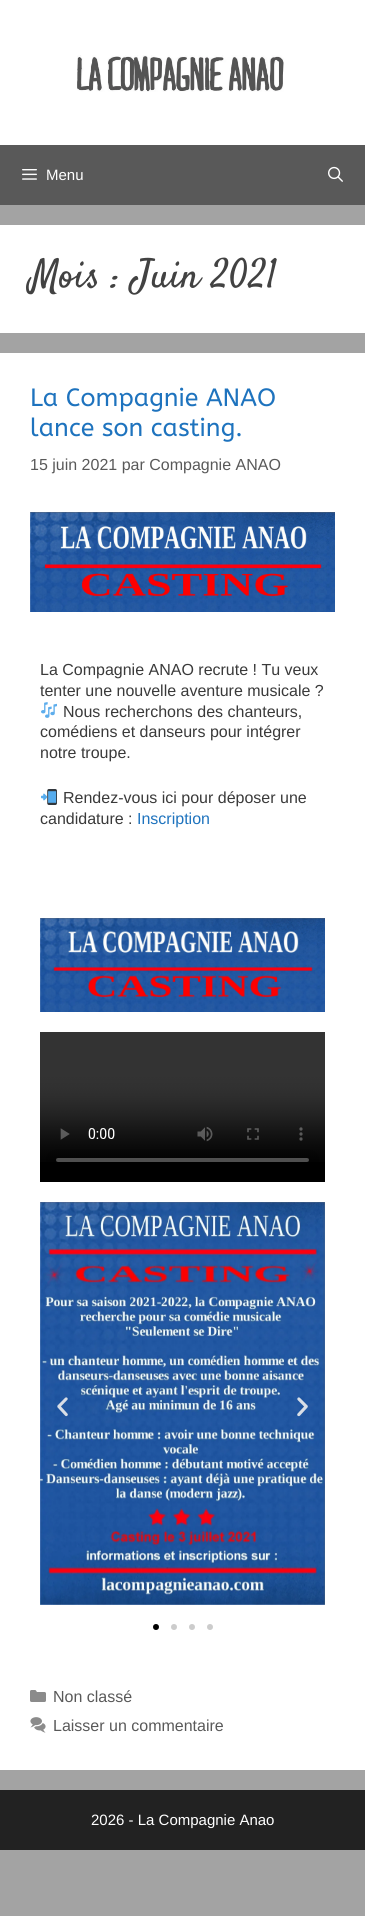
import math
import cairocffi as cairo

surface = cairo.ImageSurface(cairo.FORMAT_RGB24, 365, 1916)
ctx = cairo.Context(surface)
options = cairo.FontOptions()
options.set_hint_metrics(cairo.HINT_METRICS_OFF)
options.set_hint_style(cairo.HINT_STYLE_NONE)
ctx.set_font_options(options)
ctx.set_miter_limit(4)


def rgb(r, g, b):
    ctx.set_source_rgb(r / 255, g / 255, b / 255)


def face(family, size, italic, bold):
    ctx.select_font_face(family, cairo.FONT_SLANT_ITALIC if italic else cairo.FONT_SLANT_NORMAL, cairo.FONT_WEIGHT_BOLD if bold else cairo.FONT_WEIGHT_NORMAL)
    ctx.set_font_size(size)


def label(x, y, s):
    ctx.move_to(x, y)
    ctx.show_text(s)


def rect(x, y, w, h):
    ctx.rectangle(x, y, w, h)
    ctx.fill()


def image(path, x, y, w, h):
    ctx.save()
    ctx.set_source_surface(cairo.ImageSurface.create_from_png(path), x, y)
    ctx.rectangle(x, y, w, h)
    ctx.fill()
    ctx.restore()


rgb(163, 163, 163)
ctx.paint()
rgb(255, 255, 255)
rect(0, 0, 365, 145)
image('image0.png', 77, 55, 207, 37)
rgb(89, 89, 89)
rect(0, 145, 365, 60)
image('image1.png', 22, 169, 15, 11)
face('Liberation Sans', 15, 0, 0)
rgb(255, 255, 255)
label(46, 180, 'Menu')
image('image2.png', 328, 166, 15, 16)
rect(0, 225, 365, 108)
face('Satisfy', 40, 0, 0)
rgb(66, 66, 66)
label(30, 287, 'Mois : Juin 2021')
rgb(255, 255, 255)
rect(0, 353, 365, 1417)
face('ABeeZee', 25, 0, 0)
rgb(30, 115, 190)
label(30, 406, 'La Compagnie ANAO')
label(30, 436, 'lance son casting.')
face('Liberation Sans', 16, 0, 0)
rgb(89, 89, 89)
label(30, 470, '15 juin 2021 par Compagnie ANAO')
image('image3.png', 30, 512, 305, 100)
rgb(58, 58, 58)
label(40, 675, 'La Compagnie ANAO recrute ! Tu veux')
label(40, 696, 'tenter une nouvelle aventure musicale ?')
image('image4.png', 41, 702, 16, 16)
label(63, 717, 'Nous recherchons des chanteurs,')
label(40, 737, 'comédiens et danseurs pour intégrer')
label(40, 758, 'notre troupe.')
image('image5.png', 41, 789, 16, 16)
label(63, 803, 'Rendez-vous ici pour déposer une')
label(40, 824, 'candidature :')
rgb(30, 115, 190)
label(137, 824, 'Inscription')
image('image6.png', 40, 918, 285, 94)
rgb(0, 0, 0)
rect(40, 1162, 285, 20)
image('image7.png', 40, 1032, 285, 130)
image('image8.png', 40, 1202, 285, 403)
image('image9.png', 57, 1397, 11, 20)
image('image10.png', 297, 1397, 11, 20)
ctx.arc(156, 1627, 3, 0, 2 * math.pi)
ctx.fill()
rgb(204, 204, 204)
ctx.arc(174, 1627, 3, 0, 2 * math.pi)
ctx.fill()
ctx.arc(192, 1627, 3, 0, 2 * math.pi)
ctx.fill()
ctx.arc(210, 1627, 3, 0, 2 * math.pi)
ctx.fill()
image('image11.png', 30, 1690, 16, 12)
rgb(89, 89, 89)
label(53, 1702, 'Non classé')
image('image12.png', 30, 1717, 16, 16)
label(53, 1731, 'Laisser un commentaire')
rgb(34, 34, 34)
rect(0, 1790, 365, 60)
face('Liberation Sans', 15, 0, 0)
rgb(255, 255, 255)
label(91, 1825, '2026 - La Compagnie Anao')
surface.write_to_png('render.png')
